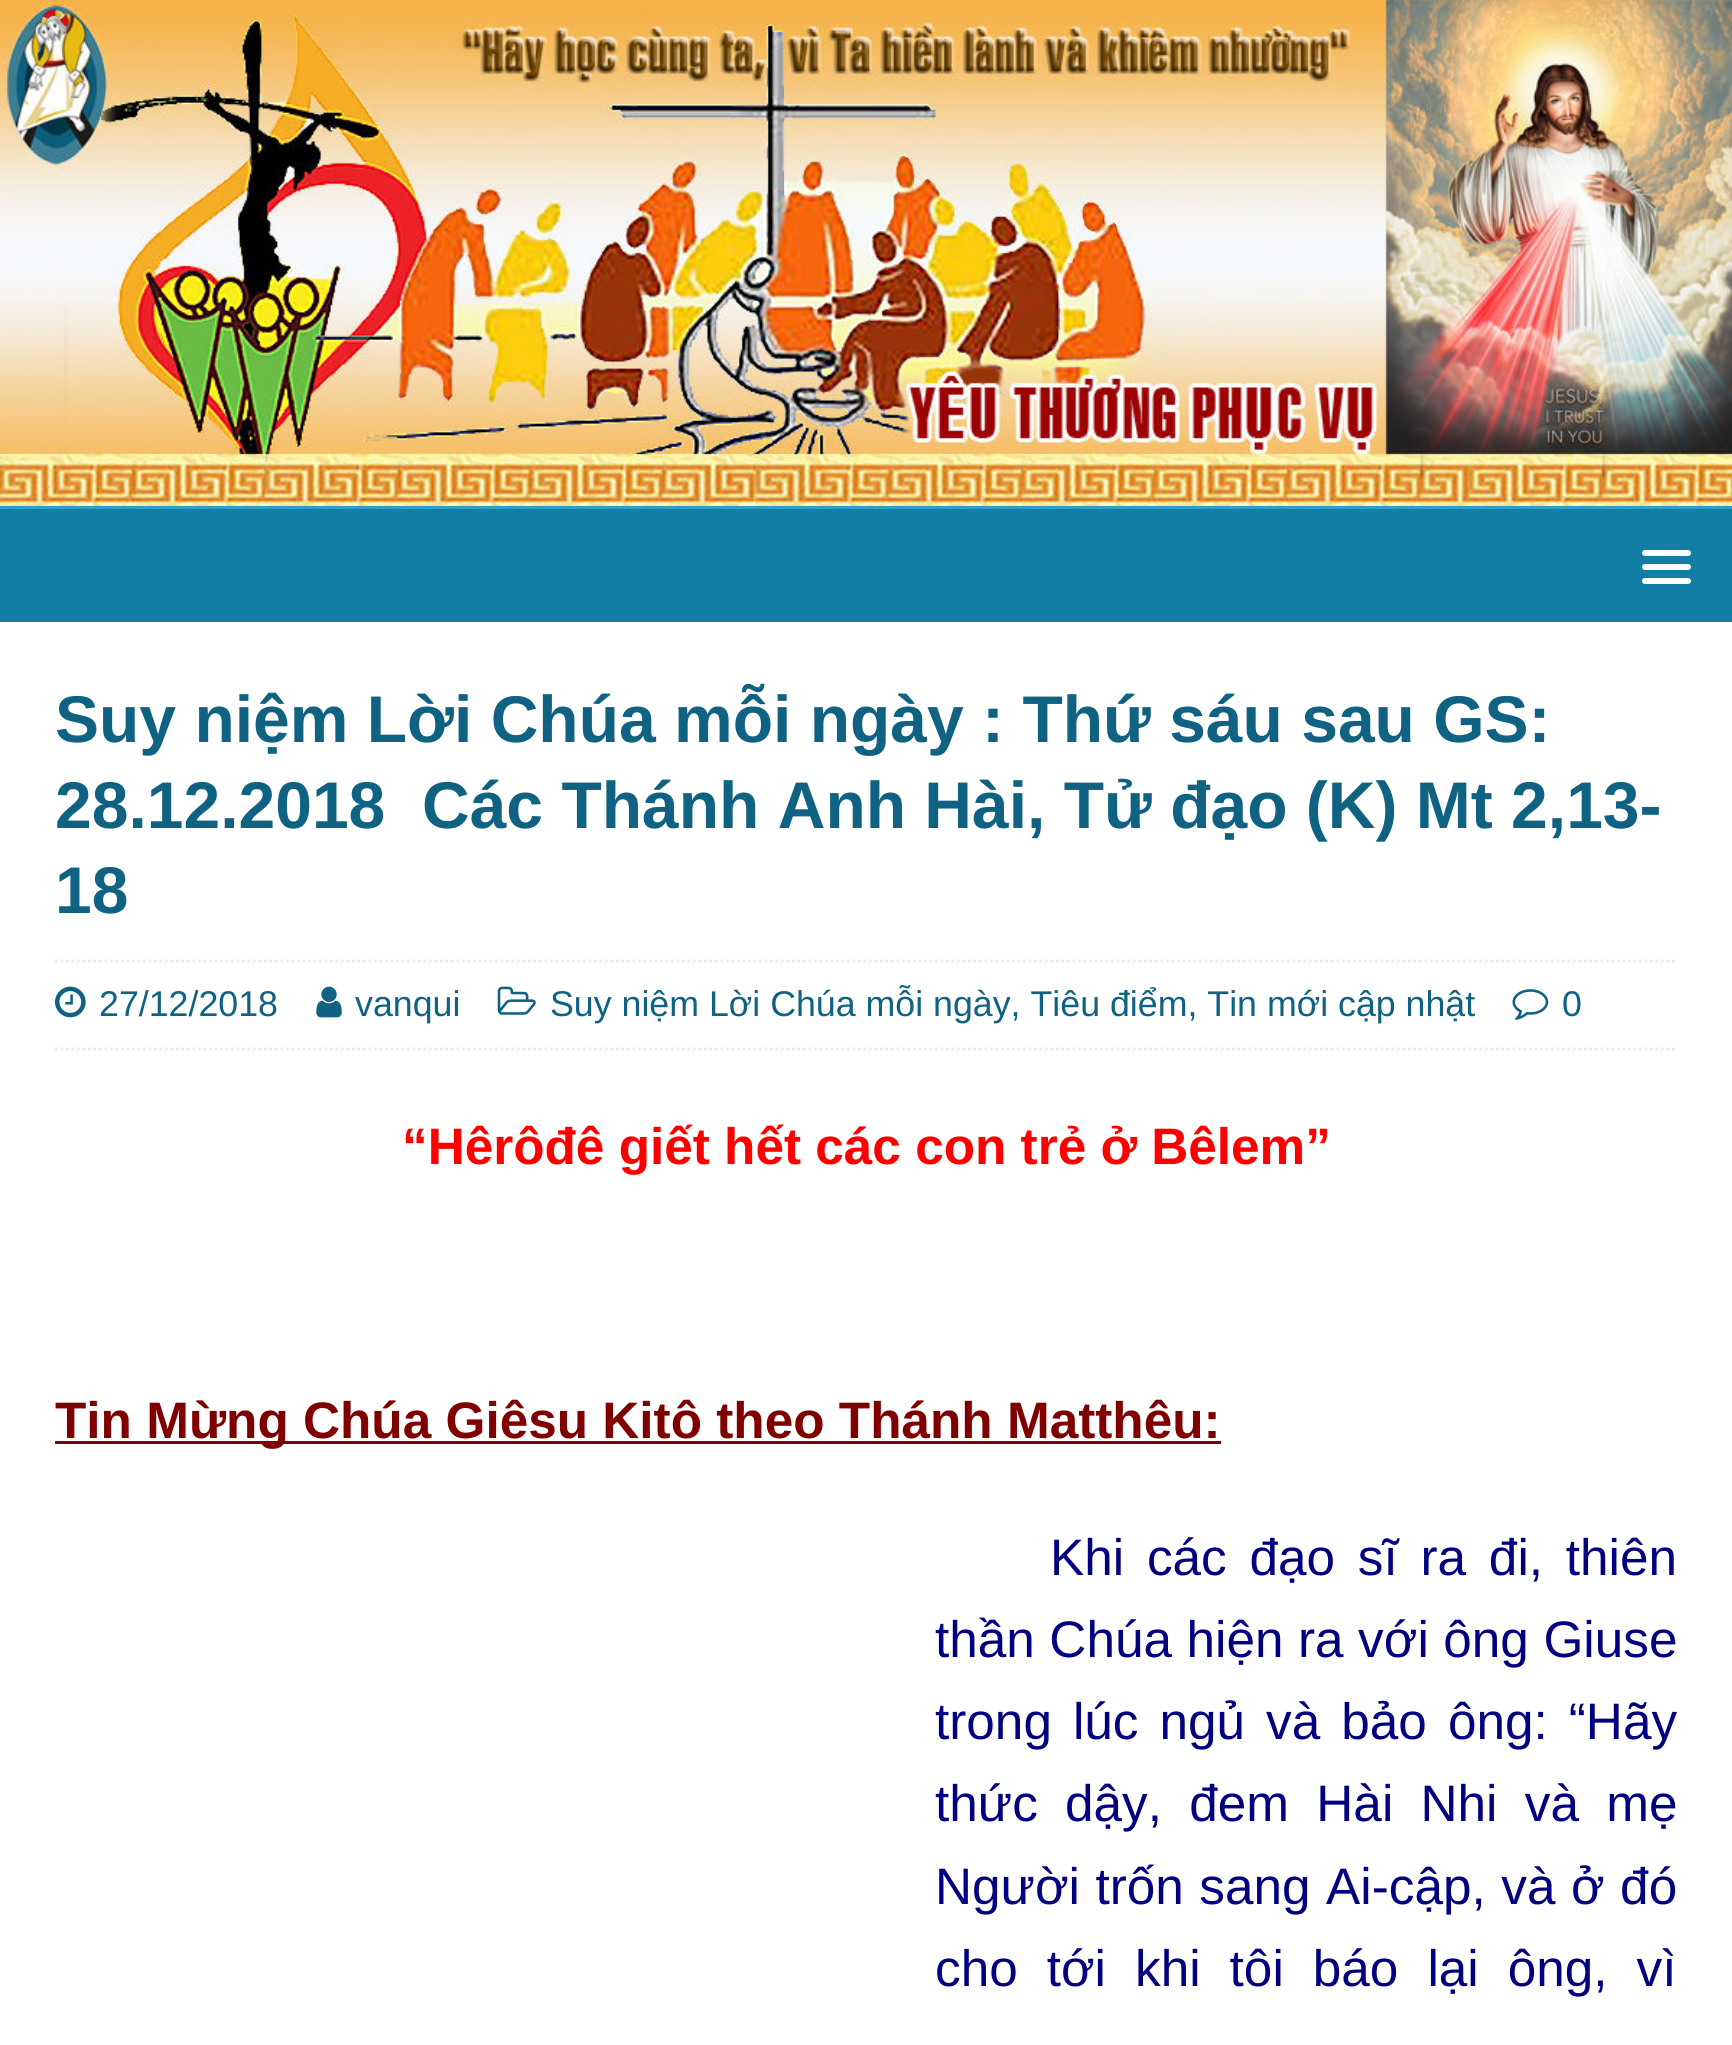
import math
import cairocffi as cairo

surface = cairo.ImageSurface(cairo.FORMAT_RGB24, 1732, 2045)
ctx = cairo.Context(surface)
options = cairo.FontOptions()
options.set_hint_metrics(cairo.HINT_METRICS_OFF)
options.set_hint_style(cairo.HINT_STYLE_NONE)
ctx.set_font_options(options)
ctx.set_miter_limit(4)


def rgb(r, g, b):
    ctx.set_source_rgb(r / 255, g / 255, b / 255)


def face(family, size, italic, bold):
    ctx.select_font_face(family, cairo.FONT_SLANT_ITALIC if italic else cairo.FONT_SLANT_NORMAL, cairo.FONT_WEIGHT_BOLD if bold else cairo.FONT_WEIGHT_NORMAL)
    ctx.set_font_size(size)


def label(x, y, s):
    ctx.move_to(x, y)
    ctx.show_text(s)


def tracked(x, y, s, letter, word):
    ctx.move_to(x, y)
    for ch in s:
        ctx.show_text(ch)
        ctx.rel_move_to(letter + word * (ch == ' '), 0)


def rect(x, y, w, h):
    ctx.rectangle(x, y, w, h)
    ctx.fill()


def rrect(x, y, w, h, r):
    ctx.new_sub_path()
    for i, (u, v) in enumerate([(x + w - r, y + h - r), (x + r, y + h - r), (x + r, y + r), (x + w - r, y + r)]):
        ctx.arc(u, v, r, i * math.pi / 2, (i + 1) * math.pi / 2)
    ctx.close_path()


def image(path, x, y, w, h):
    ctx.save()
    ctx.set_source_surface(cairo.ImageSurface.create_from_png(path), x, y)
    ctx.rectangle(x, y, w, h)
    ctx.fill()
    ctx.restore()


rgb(18, 126, 165)
ctx.paint()
image('image0.png', 0, 0, 1732, 506)
rgb(41, 159, 202)
rect(0, 506, 1732, 3)
rgb(255, 255, 255)
rrect(1642, 550, 49, 6, 3)
ctx.fill()
rrect(1642, 564, 49, 6, 3)
ctx.fill()
rrect(1642, 578, 49, 6, 3)
ctx.fill()
rect(0, 622, 1732, 1423)
face('Liberation Sans', 66, 0, 1)
rgb(15, 98, 129)
label(55, 742, 'Suy niệm Lời Chúa mỗi ngày : Thứ sáu sau GS:')
label(55, 828, '28.12.2018  Các Thánh Anh Hài, Tử đạo (K) Mt 2,13-')
label(55, 913, '18')
ctx.new_path()
ctx.move_to(55, 961)
ctx.line_to(1677.5, 961)
rgb(235, 235, 235)
ctx.set_line_width(2.8)
ctx.set_dash([2.75, 2.75])
ctx.stroke()
ctx.new_path()
ctx.move_to(55, 1049)
ctx.line_to(1677.5, 1049)
ctx.stroke()
image('image1.png', 55, 986, 31, 32)
face('Liberation Sans', 35.75, 0, 0)
rgb(15, 98, 129)
label(99, 1016, '27/12/2018')
image('image2.png', 316, 986, 26, 32)
label(355, 1016, 'vanqui')
image('image3.png', 497, 986, 39, 29)
label(550, 1016, 'Suy niệm Lời Chúa mỗi ngày, Tiêu điểm, Tin mới cập nhật')
image('image4.png', 1512, 989, 37, 31)
label(1562, 1016, '0')
face('Liberation Sans', 51.3, 0, 1)
rgb(255, 0, 0)
label(402, 1164, '“Hêrôđê giết hết các con trẻ ở Bêlem”')
rgb(128, 0, 0)
rect(55, 1441, 1166, 3)
label(55, 1438, 'Tin Mừng Chúa Giêsu Kitô theo Thánh Matthêu:')
face('Liberation Sans', 51.3, 0, 0)
rgb(0, 0, 128)
tracked(1050, 1575, 'Khi các đạo sĩ ra đi, thiên', 0, 8.5)
tracked(935, 1657, 'thần Chúa hiện ra với ông Giuse', 0, 0.25)
tracked(935, 1739, 'trong lúc ngủ và bảo ông: “Hãy', 0, 6.75)
tracked(935, 1821, 'thức dậy, đem Hài Nhi và mẹ', 0, 13)
tracked(935, 1904, 'Người trốn sang Ai-cập, và ở đó', 0, 1.25)
tracked(935, 1986, 'cho tới khi tôi báo lại ông, vì', 0, 14.75)
surface.write_to_png('render.png')
